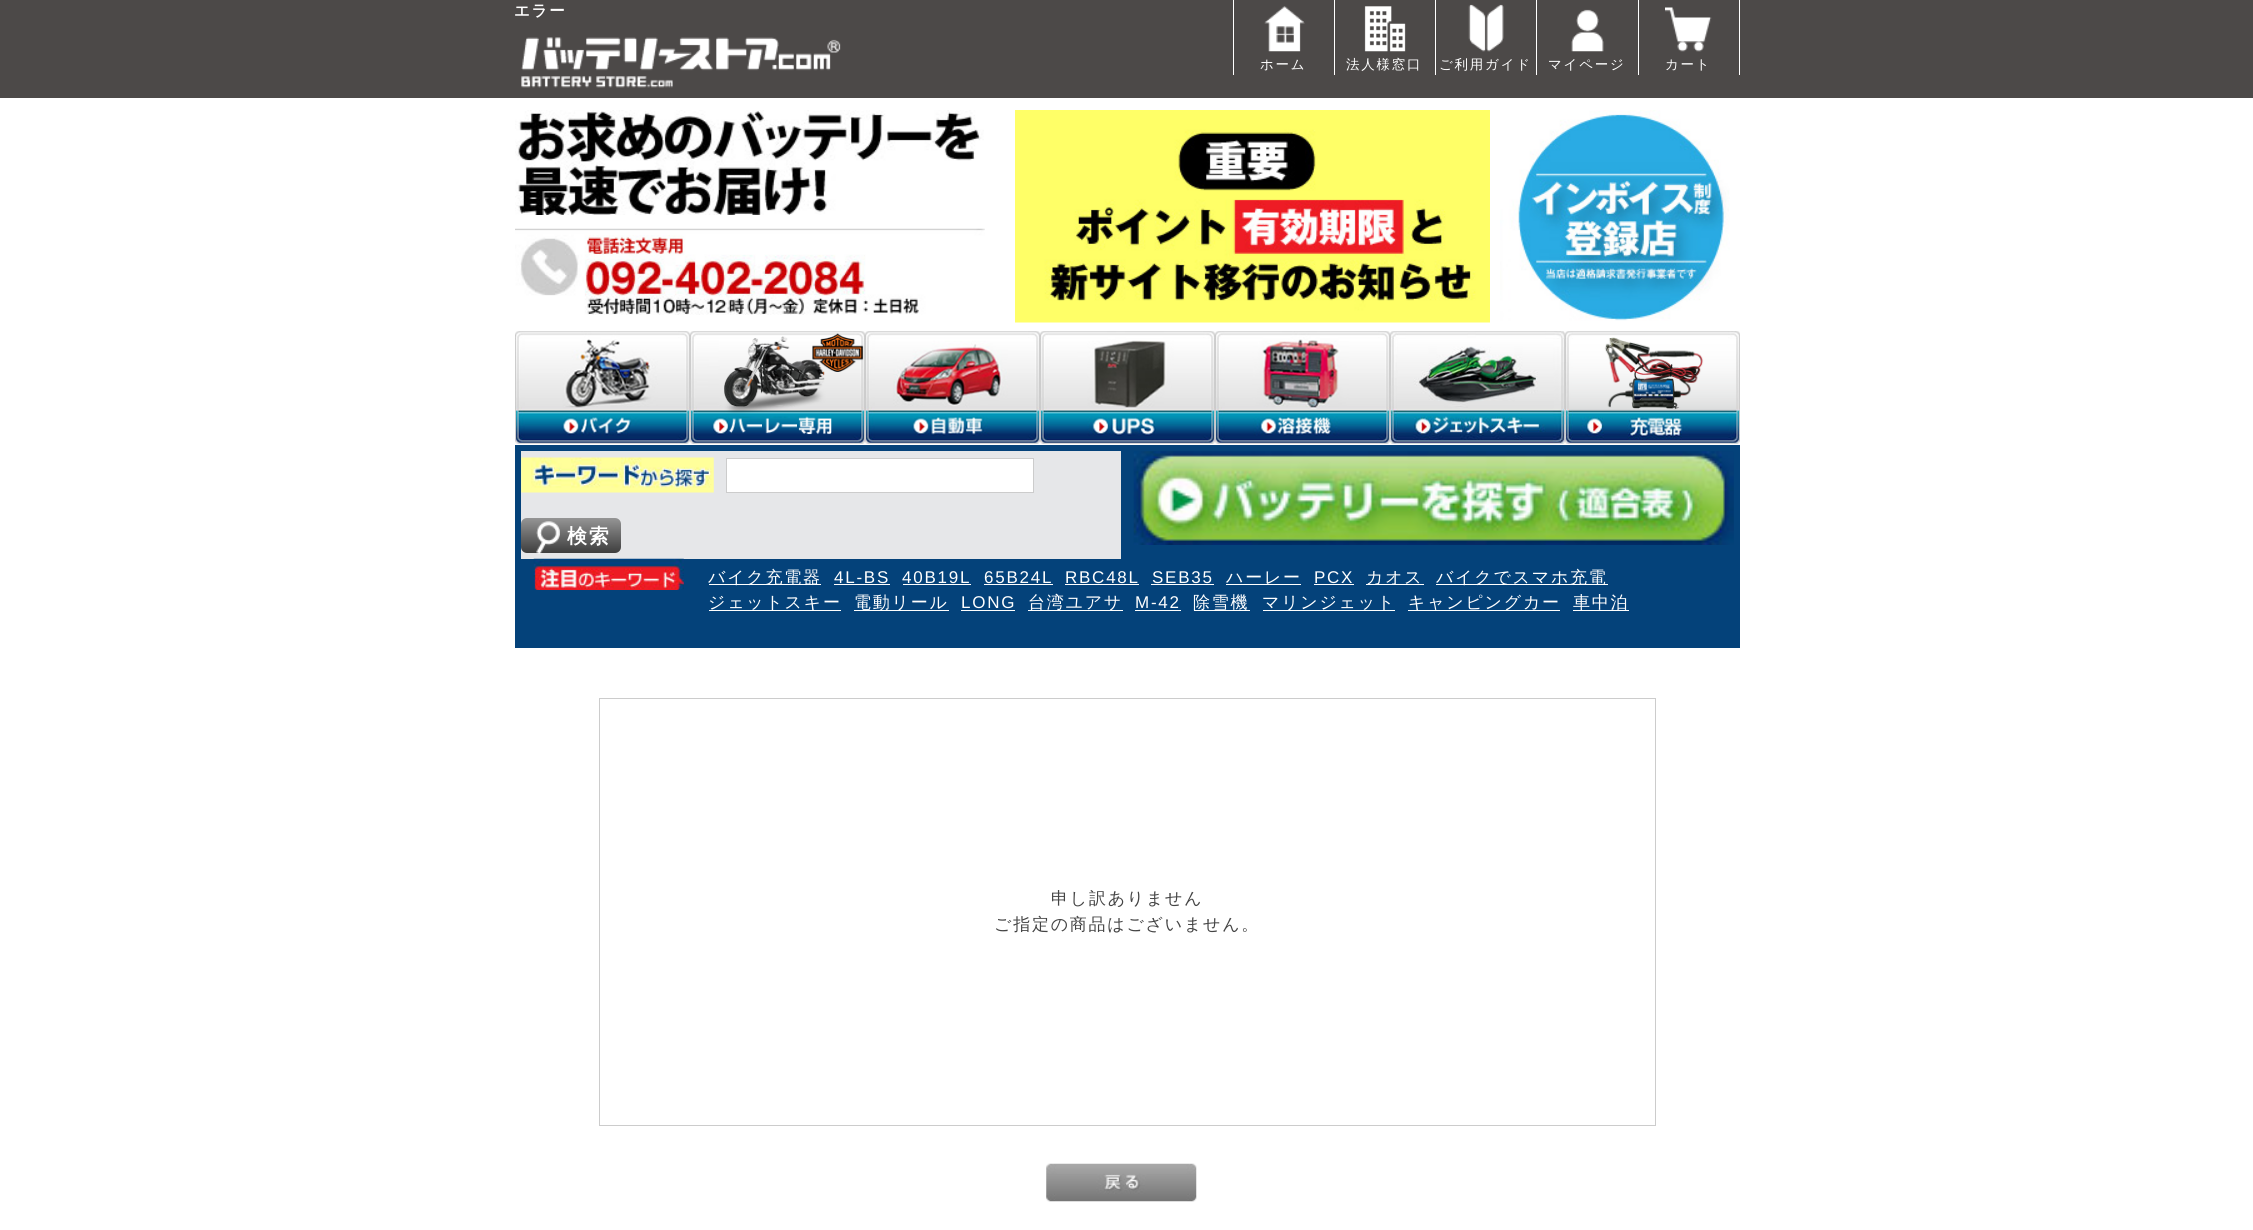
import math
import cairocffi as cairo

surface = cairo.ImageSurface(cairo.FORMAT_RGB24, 2253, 1230)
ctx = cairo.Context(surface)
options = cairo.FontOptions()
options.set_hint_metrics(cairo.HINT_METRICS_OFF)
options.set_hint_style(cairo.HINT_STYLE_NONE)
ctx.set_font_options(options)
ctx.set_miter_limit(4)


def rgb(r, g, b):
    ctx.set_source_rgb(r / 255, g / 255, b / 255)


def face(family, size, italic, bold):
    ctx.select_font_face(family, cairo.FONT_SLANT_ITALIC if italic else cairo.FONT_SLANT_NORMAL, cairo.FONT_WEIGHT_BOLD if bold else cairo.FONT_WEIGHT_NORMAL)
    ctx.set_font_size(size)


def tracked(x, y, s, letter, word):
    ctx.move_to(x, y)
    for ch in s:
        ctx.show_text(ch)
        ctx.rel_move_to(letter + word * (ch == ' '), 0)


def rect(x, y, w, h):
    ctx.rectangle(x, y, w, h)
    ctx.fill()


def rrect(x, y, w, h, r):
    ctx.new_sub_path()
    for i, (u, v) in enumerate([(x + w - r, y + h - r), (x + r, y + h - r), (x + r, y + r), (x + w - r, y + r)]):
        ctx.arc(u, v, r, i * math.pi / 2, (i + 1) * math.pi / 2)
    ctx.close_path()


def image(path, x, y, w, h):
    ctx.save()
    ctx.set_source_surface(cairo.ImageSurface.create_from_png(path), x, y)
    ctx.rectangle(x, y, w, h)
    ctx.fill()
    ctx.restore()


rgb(255, 255, 255)
ctx.paint()
rgb(76, 73, 72)
rect(0, 0, 2253, 98)
face('WenQuanYi Zen Hei', 15.5, 0, 1)
rgb(255, 255, 255)
tracked(514, 16, 'エラー', 1.75, 0)
image('image0.png', 521, 37, 320, 51)
rect(1233, 0, 1, 75)
rect(1334, 0, 1, 75)
image('image1.png', 1264, 6, 41, 46)
face('WenQuanYi Zen Hei Medium', 13.5, 0, 0)
tracked(1260, 69, 'ホーム', 1.75, 0)
rect(1435, 0, 1, 75)
image('image2.png', 1364, 6, 42, 46)
tracked(1346, 69, '法人様窓口', 1.75, 0)
rect(1536, 0, 1, 75)
image('image3.png', 1468, 4, 36, 48)
tracked(1439, 69, 'ご利用ガイド', 1.75, 0)
rect(1638, 0, 1, 75)
image('image4.png', 1571, 9, 33, 43)
tracked(1548, 69, 'マイページ', 1.75, 0)
rect(1739, 0, 1, 75)
image('image5.png', 1665, 7, 47, 45)
tracked(1665, 69, 'カート', 1.75, 0)
image('image6.png', 515, 110, 469, 105)
image('image7.png', 515, 228, 470, 87)
image('image8.png', 1015, 110, 475, 213)
image('image9.png', 1500, 110, 230, 211)
image('image10.png', 515, 331, 175, 113)
image('image11.png', 690, 331, 175, 113)
image('image12.png', 865, 331, 175, 113)
image('image13.png', 1040, 331, 175, 113)
image('image14.png', 1215, 331, 175, 113)
image('image15.png', 1390, 331, 175, 113)
image('image16.png', 1565, 331, 175, 113)
rgb(4, 66, 122)
rect(515, 445, 1225, 203)
rgb(230, 231, 233)
rect(521, 451, 600, 108)
image('image17.png', 521, 457, 193, 36)
rgb(255, 255, 255)
ctx.rectangle(726.5, 458.5, 307, 34)
ctx.fill_preserve()
rgb(204, 204, 204)
ctx.set_line_width(1)
ctx.stroke()
gradient = cairo.LinearGradient(571, 518, 571, 553)
gradient.add_color_stop_rgba(0, 0.584, 0.584, 0.584, 1)
gradient.add_color_stop_rgba(1, 0.243, 0.243, 0.243, 1)
ctx.set_source(gradient)
rrect(521, 518, 100, 35, 6)
ctx.fill()
image('image18.png', 536, 521, 24, 33)
face('WenQuanYi Zen Hei', 20, 0, 1)
rgb(255, 255, 255)
tracked(567, 543, '検索', 1.75, 0)
image('image19.png', 1133, 451, 601, 94)
image('image20.png', 533, 558, 151, 32)
rect(709, 584, 112, 1)
face('WenQuanYi Zen Hei Medium', 17, 0, 0)
tracked(708, 583, 'バイク充電器', 1.75, 0)
face('Liberation Sans', 17, 0, 0)
tracked(834, 583, '4L-BS', 1.75, 0)
rect(834, 584, 56, 1)
tracked(902, 583, '40B19L', 1.75, 0)
rect(903, 584, 68, 1)
tracked(984, 583, '65B24L', 1.75, 0)
rect(984, 584, 69, 1)
tracked(1065, 583, 'RBC48L', 1.75, 0)
rect(1065, 584, 74, 1)
tracked(1152, 583, 'SEB35', 1.75, 0)
rect(1151, 584, 63, 1)
face('WenQuanYi Zen Hei Medium', 17, 0, 0)
tracked(1226, 583, 'ハーレー', 1.75, 0)
rect(1226, 584, 75, 1)
face('Liberation Sans', 17, 0, 0)
tracked(1314, 583, 'PCX', 1.75, 0)
rect(1314, 584, 40, 1)
rect(1366, 584, 58, 1)
face('WenQuanYi Zen Hei Medium', 17, 0, 0)
tracked(1366, 583, 'カオス', 1.75, 0)
rect(1436, 584, 172, 1)
tracked(1436, 583, 'バイクでスマホ充電', 1.75, 0)
rect(709, 610, 132, 1)
tracked(708, 608, 'ジェットスキー', 1.75, 0)
rect(854, 610, 95, 1)
tracked(854, 608, '電動リール', 1.75, 0)
face('Liberation Sans', 17, 0, 0)
tracked(961, 608, 'LONG', 1.75, 0)
rect(961, 610, 54, 1)
rect(1028, 610, 95, 1)
face('WenQuanYi Zen Hei Medium', 17, 0, 0)
tracked(1028, 608, '台湾ユアサ', 1.75, 0)
face('Liberation Sans', 17, 0, 0)
tracked(1135, 608, 'M-42', 1.75, 0)
rect(1135, 610, 46, 1)
rect(1194, 610, 56, 1)
face('WenQuanYi Zen Hei Medium', 17, 0, 0)
tracked(1193, 608, '除雪機', 1.75, 0)
rect(1263, 610, 132, 1)
tracked(1262, 608, 'マリンジェット', 1.75, 0)
rect(1408, 610, 152, 1)
tracked(1408, 608, 'キャンピングカー', 1.75, 0)
rect(1573, 610, 56, 1)
tracked(1573, 608, '車中泊', 1.75, 0)
ctx.rectangle(599.5, 698.5, 1056, 427)
rgb(204, 204, 204)
ctx.stroke()
rgb(68, 68, 68)
tracked(1051, 904, '申し訳ありません', 1.75, 0)
tracked(994, 930, 'ご指定の商品はございません。', 1.75, 0)
image('image21.png', 1046, 1163, 151, 39)
surface.write_to_png('render.png')
